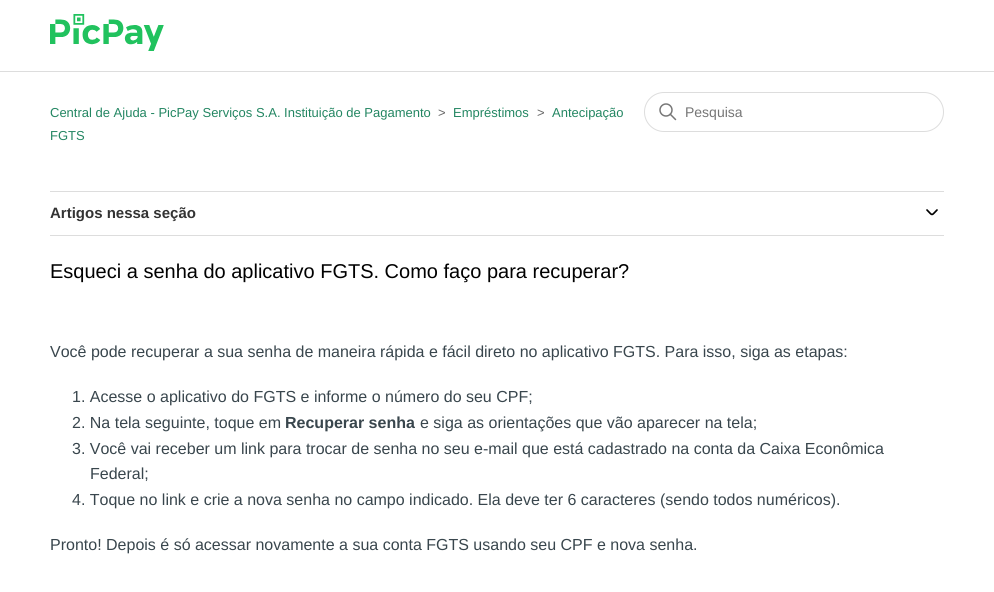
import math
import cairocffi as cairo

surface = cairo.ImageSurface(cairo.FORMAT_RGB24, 994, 592)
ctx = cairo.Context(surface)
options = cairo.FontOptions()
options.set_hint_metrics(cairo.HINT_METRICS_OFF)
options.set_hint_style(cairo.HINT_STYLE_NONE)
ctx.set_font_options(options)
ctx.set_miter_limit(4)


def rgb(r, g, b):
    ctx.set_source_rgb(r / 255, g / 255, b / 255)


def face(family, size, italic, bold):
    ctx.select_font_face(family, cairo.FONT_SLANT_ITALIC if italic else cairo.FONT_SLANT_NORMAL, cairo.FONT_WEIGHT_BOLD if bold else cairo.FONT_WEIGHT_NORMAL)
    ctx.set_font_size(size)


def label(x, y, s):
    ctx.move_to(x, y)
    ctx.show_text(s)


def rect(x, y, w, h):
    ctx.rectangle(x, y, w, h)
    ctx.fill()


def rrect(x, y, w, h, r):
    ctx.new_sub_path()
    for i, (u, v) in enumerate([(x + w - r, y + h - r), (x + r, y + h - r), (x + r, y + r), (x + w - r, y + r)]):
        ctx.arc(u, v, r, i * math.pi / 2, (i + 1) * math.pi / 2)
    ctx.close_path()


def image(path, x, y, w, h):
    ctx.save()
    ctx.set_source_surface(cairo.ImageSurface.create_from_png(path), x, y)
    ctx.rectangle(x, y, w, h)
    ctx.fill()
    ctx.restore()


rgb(255, 255, 255)
ctx.paint()
image('image0.png', 50, 14, 114, 37)
rgb(221, 221, 221)
rect(0, 71, 994, 1)
face('Liberation Sans', 13, 0, 0)
rgb(35, 134, 98)
label(50, 117, 'Central de Ajuda - PicPay Serviços S.A. Instituição de Pagamento')
rgb(102, 102, 102)
label(438, 117, '>')
rgb(35, 134, 98)
label(453, 117, 'Empréstimos')
rgb(102, 102, 102)
label(537, 117, '>')
rgb(35, 134, 98)
label(552, 117, 'Antecipação')
label(50, 140, 'FGTS')
rrect(644.5, 92.5, 299, 39, 19.5)
rgb(221, 221, 221)
ctx.set_line_width(1)
ctx.stroke()
image('image1.png', 659, 103, 18, 18)
face('Liberation Sans', 14, 0, 0)
rgb(117, 117, 117)
label(685, 117, 'Pesquisa')
rgb(221, 221, 221)
rect(50, 191, 894, 1)
rect(50, 235, 894, 1)
face('Liberation Sans', 15, 0, 1)
rgb(51, 51, 51)
label(50, 218, 'Artigos nessa seção')
ctx.new_path()
ctx.move_to(927, 210)
ctx.curve_to(933, 216, 931, 216, 937, 210)
rgb(0, 0, 0)
ctx.set_line_width(1.7)
ctx.set_line_cap(cairo.LINE_CAP_ROUND)
ctx.stroke()
face('Liberation Sans', 20, 0, 0)
label(50, 278, 'Esqueci a senha do aplicativo FGTS. Como faço para recuperar?')
face('Liberation Sans', 16, 0, 0)
rgb(57, 70, 77)
label(50, 357, 'Você pode recuperar a sua senha de maneira rápida e fácil direto no aplicativo FGTS. Para isso, siga as etapas:')
label(72, 402, '1. Acesse o aplicativo do FGTS e informe o número do seu CPF;')
label(72, 428, '2. Na tela seguinte, toque em')
face('Liberation Sans', 16, 0, 1)
label(285, 428, 'Recuperar senha')
face('Liberation Sans', 16, 0, 0)
label(420, 428, 'e siga as orientações que vão aparecer na tela;')
label(72, 454, '3. Você vai receber um link para trocar de senha no seu e-mail que está cadastrado na conta da Caixa Econômica')
label(90, 479, 'Federal;')
label(72, 505, '4. Toque no link e crie a nova senha no campo indicado. Ela deve ter 6 caracteres (sendo todos numéricos).')
label(50, 550, 'Pronto! Depois é só acessar novamente a sua conta FGTS usando seu CPF e nova senha.')
surface.write_to_png('render.png')
